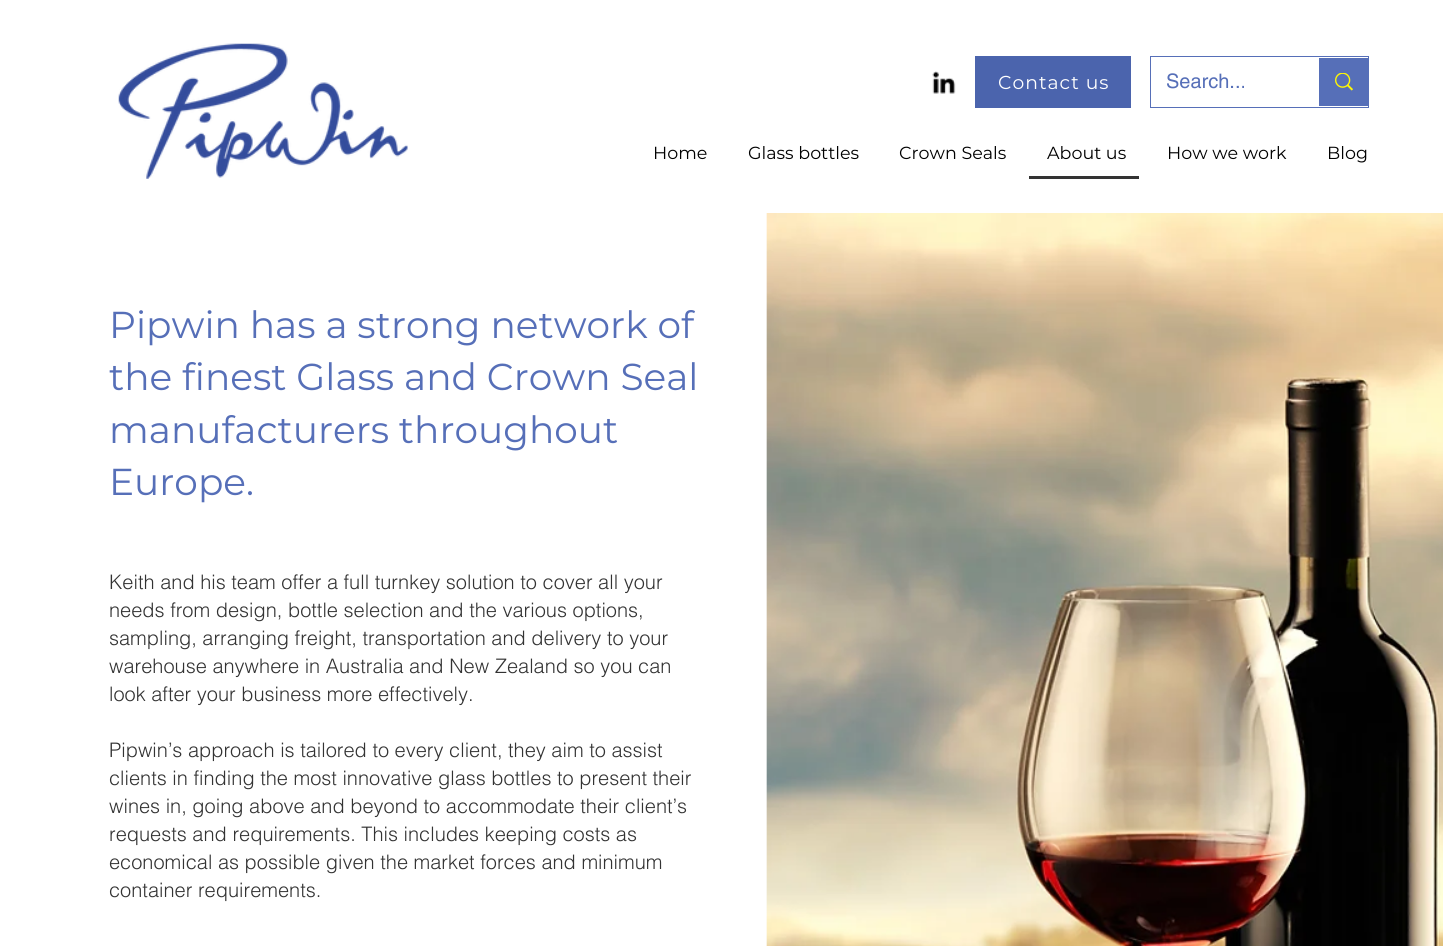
import math
import cairocffi as cairo

surface = cairo.ImageSurface(cairo.FORMAT_RGB24, 1443, 946)
ctx = cairo.Context(surface)
options = cairo.FontOptions()
options.set_hint_metrics(cairo.HINT_METRICS_OFF)
options.set_hint_style(cairo.HINT_STYLE_NONE)
ctx.set_font_options(options)
ctx.set_miter_limit(4)


def rgb(r, g, b):
    ctx.set_source_rgb(r / 255, g / 255, b / 255)


def face(family, size, italic, bold):
    ctx.select_font_face(family, cairo.FONT_SLANT_ITALIC if italic else cairo.FONT_SLANT_NORMAL, cairo.FONT_WEIGHT_BOLD if bold else cairo.FONT_WEIGHT_NORMAL)
    ctx.set_font_size(size)


def label(x, y, s):
    ctx.move_to(x, y)
    ctx.show_text(s)


def tracked(x, y, s, letter, word):
    ctx.move_to(x, y)
    for ch in s:
        ctx.show_text(ch)
        ctx.rel_move_to(letter + word * (ch == ' '), 0)


def rect(x, y, w, h):
    ctx.rectangle(x, y, w, h)
    ctx.fill()


def image(path, x, y, w, h):
    ctx.save()
    ctx.set_source_surface(cairo.ImageSurface.create_from_png(path), x, y)
    ctx.rectangle(x, y, w, h)
    ctx.fill()
    ctx.restore()


rgb(255, 255, 255)
ctx.paint()
rgb(75, 100, 173)
rect(975, 56, 156, 52)
face('Montserrat', 18.75, 0, 0)
rgb(255, 255, 255)
tracked(998, 89, 'Contact us', 1, 0)
ctx.rectangle(1150.5, 56.5, 218, 51)
rgb(86, 111, 184)
ctx.set_line_width(1)
ctx.stroke()
face('helvetica', 20, 0, 0)
label(1166, 88, 'Search...')
rect(1319, 58, 49, 48)
image('image0.png', 1335, 73, 18, 18)
image('image1.png', 118, 43, 290, 136)
image('image2.png', 932, 71, 24, 23)
face('Montserrat', 17.5, 0, 0)
rgb(0, 0, 0)
label(653, 159, 'Home')
label(748, 159, 'Glass bottles')
label(899, 159, 'Crown Seals')
rgb(51, 51, 51)
rect(1029, 176, 110, 3)
rgb(0, 0, 0)
label(1047, 159, 'About us')
label(1167, 159, 'How we work')
label(1327, 159, 'Blog')
face('Montserrat', 37.5, 0, 0)
rgb(86, 111, 184)
label(109, 338, 'Pipwin has a strong network of')
label(109, 390, 'the finest Glass and Crown Seal')
label(109, 443, 'manufacturers throughout')
label(109, 495, 'Europe.')
image('image3.png', 766, 213, 677, 733)
face('helvetica Light', 20, 0, 0)
rgb(51, 51, 51)
label(109, 589, 'Keith and his team offer a full turnkey solution to cover all your')
label(109, 617, 'needs from design, bottle selection and the various options,')
label(109, 645, 'sampling, arranging freight, transportation and delivery to your')
label(109, 673, 'warehouse anywhere in Australia and New Zealand so you can')
label(109, 701, 'look after your business more effectively.')
label(109, 757, 'Pipwin’s approach is tailored to every client, they aim to assist')
label(109, 785, 'clients in finding the most innovative glass bottles to present their')
label(109, 813, 'wines in, going above and beyond to accommodate their client’s')
label(109, 841, 'requests and requirements. This includes keeping costs as')
label(109, 869, 'economical as possible given the market forces and minimum')
label(109, 897, 'container requirements.')
surface.write_to_png('render.png')
